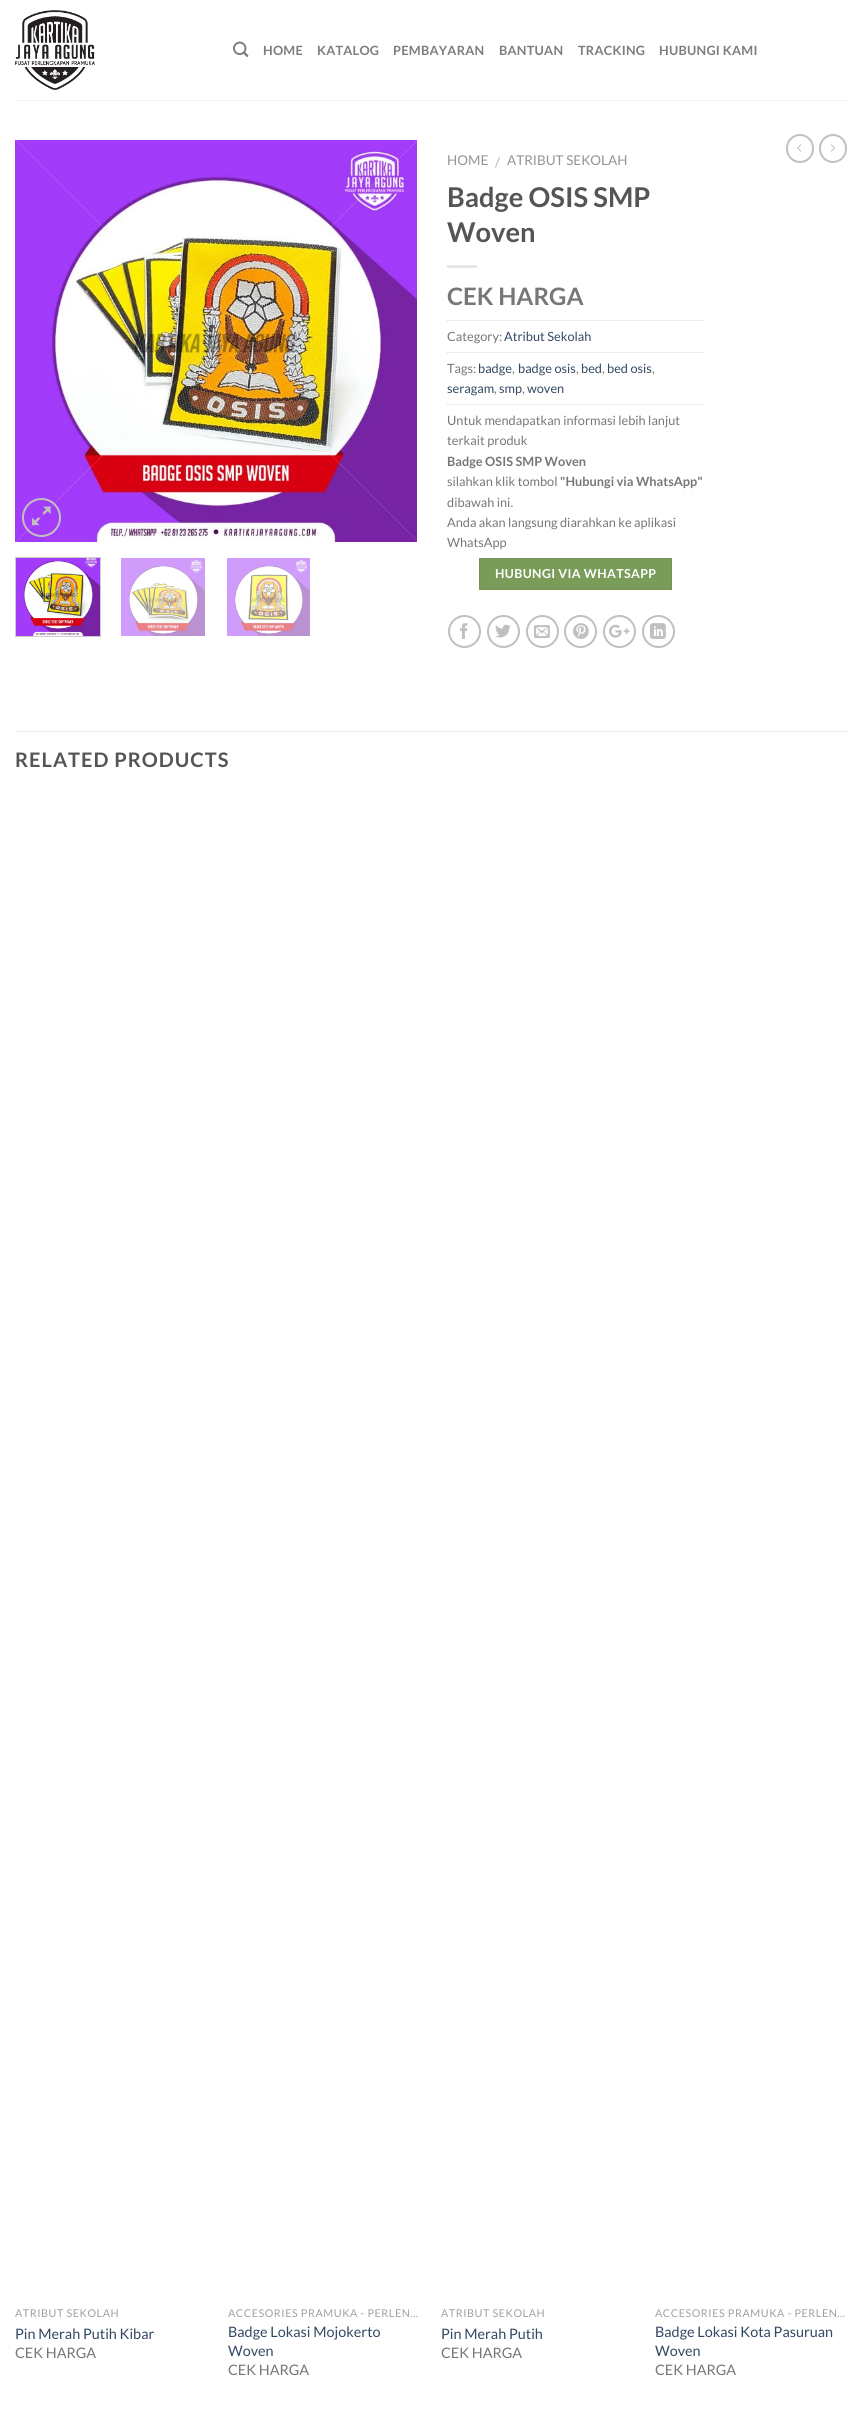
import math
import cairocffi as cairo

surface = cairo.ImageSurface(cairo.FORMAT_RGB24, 863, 2413)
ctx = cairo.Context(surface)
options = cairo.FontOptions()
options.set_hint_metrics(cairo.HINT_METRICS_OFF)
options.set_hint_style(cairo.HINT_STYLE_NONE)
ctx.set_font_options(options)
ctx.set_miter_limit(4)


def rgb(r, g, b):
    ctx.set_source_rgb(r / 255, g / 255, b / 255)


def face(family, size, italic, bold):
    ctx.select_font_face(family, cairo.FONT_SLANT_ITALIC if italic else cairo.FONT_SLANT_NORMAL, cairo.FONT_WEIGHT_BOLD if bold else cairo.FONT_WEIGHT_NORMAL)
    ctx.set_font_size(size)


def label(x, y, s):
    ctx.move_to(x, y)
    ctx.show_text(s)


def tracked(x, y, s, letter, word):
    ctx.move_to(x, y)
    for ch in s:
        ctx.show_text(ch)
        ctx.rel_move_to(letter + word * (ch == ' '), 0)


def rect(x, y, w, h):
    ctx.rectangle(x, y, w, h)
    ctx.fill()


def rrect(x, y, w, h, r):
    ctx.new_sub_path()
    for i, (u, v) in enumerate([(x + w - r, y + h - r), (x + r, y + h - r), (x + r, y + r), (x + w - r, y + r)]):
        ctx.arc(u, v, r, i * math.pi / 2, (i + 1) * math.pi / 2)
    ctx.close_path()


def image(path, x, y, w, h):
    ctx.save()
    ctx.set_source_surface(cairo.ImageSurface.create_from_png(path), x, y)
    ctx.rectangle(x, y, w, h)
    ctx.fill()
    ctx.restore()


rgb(255, 255, 255)
ctx.paint()
image('image0.png', 15, 10, 80, 80)
image('image1.png', 233, 41, 16, 16)
face('Lato', 12.75, 0, 1)
rgb(125, 125, 125)
tracked(263, 55, 'HOME', 0.25, 0)
tracked(317, 55, 'KATALOG', 0.25, 0)
tracked(393, 55, 'PEMBAYARAN', 0.25, 0)
tracked(499, 55, 'BANTUAN', 0.25, 0)
tracked(578, 55, 'TRACKING', 0.25, 0)
tracked(659, 55, 'HUBUNGI KAMI', 0.25, 0)
rgb(241, 241, 241)
rect(15, 100, 833, 1)
image('image2.png', 15, 140, 402, 402)
ctx.arc(41.5, 517.5, 18.5, 0, 2 * math.pi)
rgb(192, 192, 192)
ctx.stroke()
image('image3.png', 32, 506, 19, 20)
ctx.rectangle(15.5, 557.5, 85, 79)
rgb(204, 204, 204)
ctx.set_line_width(1)
ctx.stroke()
image('image4.png', 16, 558, 84, 78)
image('image5.png', 121, 558, 84, 78)
image('image6.png', 227, 558, 83, 78)
face('Lato', 13.5, 0, 0)
rgb(148, 148, 148)
label(447, 165, 'HOME')
rgb(178, 178, 178)
label(495, 167, '/')
rgb(148, 148, 148)
label(507, 165, 'ATRIBUT SEKOLAH')
face('Lato', 27.25, 0, 1)
rgb(85, 85, 85)
label(447, 207, 'Badge OSIS SMP')
label(447, 242, 'Woven')
rgb(230, 230, 230)
rect(447, 265, 30, 3)
face('Lato', 24, 0, 1)
rgb(119, 119, 119)
label(447, 305, 'CEK HARGA')
ctx.new_path()
ctx.move_to(447, 320.5)
ctx.line_to(704, 320.5)
rgb(221, 221, 221)
ctx.set_dash([1, 1])
ctx.stroke()
face('Lato', 12.75, 0, 0)
rgb(119, 119, 119)
label(447, 341, 'Category:')
rgb(51, 72, 98)
label(504, 341, 'Atribut Sekolah')
ctx.new_path()
ctx.move_to(447, 352.5)
ctx.line_to(704, 352.5)
rgb(221, 221, 221)
ctx.stroke()
rgb(119, 119, 119)
label(447, 373, 'Tags:')
rgb(51, 72, 98)
label(478, 373, 'badge')
rgb(119, 119, 119)
label(512, 373, ',')
rgb(51, 72, 98)
label(518, 373, 'badge osis')
rgb(119, 119, 119)
label(576, 373, ',')
rgb(51, 72, 98)
label(581, 373, 'bed')
rgb(119, 119, 119)
label(602, 373, ',')
rgb(51, 72, 98)
label(607, 373, 'bed osis')
rgb(119, 119, 119)
label(652, 373, ',')
rgb(51, 72, 98)
label(447, 393, 'seragam')
rgb(119, 119, 119)
label(494, 393, ',')
rgb(51, 72, 98)
label(499, 393, 'smp')
rgb(119, 119, 119)
label(522, 393, ',')
rgb(51, 72, 98)
label(527, 393, 'woven')
ctx.new_path()
ctx.move_to(447, 404.5)
ctx.line_to(704, 404.5)
rgb(221, 221, 221)
ctx.stroke()
rgb(119, 119, 119)
label(447, 425, 'Untuk mendapatkan informasi lebih lanjut')
label(447, 445, 'terkait produk')
face('Lato', 12.75, 0, 1)
label(447, 466, 'Badge OSIS SMP Woven')
face('Lato', 12.75, 0, 0)
label(447, 486, 'silahkan klik tombol')
face('Lato', 12.75, 0, 1)
label(560, 486, '"Hubungi via WhatsApp"')
face('Lato', 12.75, 0, 0)
label(447, 507, 'dibawah ini.')
label(447, 527, 'Anda akan langsung diarahkan ke aplikasi')
label(447, 547, 'WhatsApp')
rgb(122, 156, 89)
ctx.rectangle(479.5, 558.5, 192, 31)
ctx.fill_preserve()
rgb(116, 148, 85)
ctx.set_dash([])
ctx.stroke()
face('Lato', 12.4, 0, 1)
rgb(255, 255, 255)
tracked(495, 578, 'HUBUNGI VIA WHATSAPP', 0.4, 0)
ctx.new_path()
ctx.arc(464.5, 631.5, 15.5, 0, 2 * math.pi)
rgb(192, 192, 192)
ctx.set_line_width(2)
ctx.stroke()
image('image7.png', 460, 623, 8, 16)
ctx.arc(503.5, 631.5, 15.5, 0, 2 * math.pi)
ctx.stroke()
image('image8.png', 495, 624, 16, 14)
ctx.arc(542.5, 631.5, 15.5, 0, 2 * math.pi)
ctx.stroke()
image('image9.png', 534, 625, 16, 13)
ctx.arc(580.5, 631.5, 15.5, 0, 2 * math.pi)
ctx.stroke()
image('image10.png', 573, 623, 16, 16)
ctx.arc(619.5, 631.5, 15.5, 0, 2 * math.pi)
ctx.stroke()
image('image11.png', 609, 624, 21, 14)
ctx.arc(658.5, 631.5, 15.5, 0, 2 * math.pi)
ctx.stroke()
image('image12.png', 650, 623, 16, 16)
rrect(787, 135, 26, 27, 13)
ctx.stroke()
image('image13.png', 797, 144, 5, 8)
rrect(820, 135, 26, 27, 13)
ctx.stroke()
image('image14.png', 831, 144, 4, 8)
rgb(236, 236, 236)
rect(15, 731, 833, 1)
face('Lato', 20, 0, 1)
rgb(85, 85, 85)
tracked(15, 767, 'RELATED PRODUCTS', 1, 0)
face('Lato', 10.75, 0, 0)
rgb(160, 160, 160)
tracked(15, 2317, 'ATRIBUT SEKOLAH', 0.55, 0)
face('Lato', 14.4, 0, 0)
rgb(51, 72, 98)
label(15, 2339, 'Pin Merah Putih Kibar')
rgb(119, 119, 119)
label(15, 2358, 'CEK HARGA')
face('Lato', 10.75, 0, 0)
rgb(160, 160, 160)
tracked(228, 2317, 'ACCESORIES PRAMUKA - PERLEN…', 0.55, 0)
face('Lato', 14.4, 0, 0)
rgb(51, 72, 98)
label(228, 2337, 'Badge Lokasi Mojokerto')
label(228, 2356, 'Woven')
rgb(119, 119, 119)
label(228, 2375, 'CEK HARGA')
face('Lato', 10.75, 0, 0)
rgb(160, 160, 160)
tracked(441, 2317, 'ATRIBUT SEKOLAH', 0.55, 0)
face('Lato', 14.4, 0, 0)
rgb(51, 72, 98)
label(441, 2339, 'Pin Merah Putih')
rgb(119, 119, 119)
label(441, 2358, 'CEK HARGA')
face('Lato', 10.75, 0, 0)
rgb(160, 160, 160)
tracked(655, 2317, 'ACCESORIES PRAMUKA - PERLEN…', 0.55, 0)
face('Lato', 14.4, 0, 0)
rgb(51, 72, 98)
label(655, 2337, 'Badge Lokasi Kota Pasuruan')
label(655, 2356, 'Woven')
rgb(119, 119, 119)
label(655, 2375, 'CEK HARGA')
surface.write_to_png('render.png')
